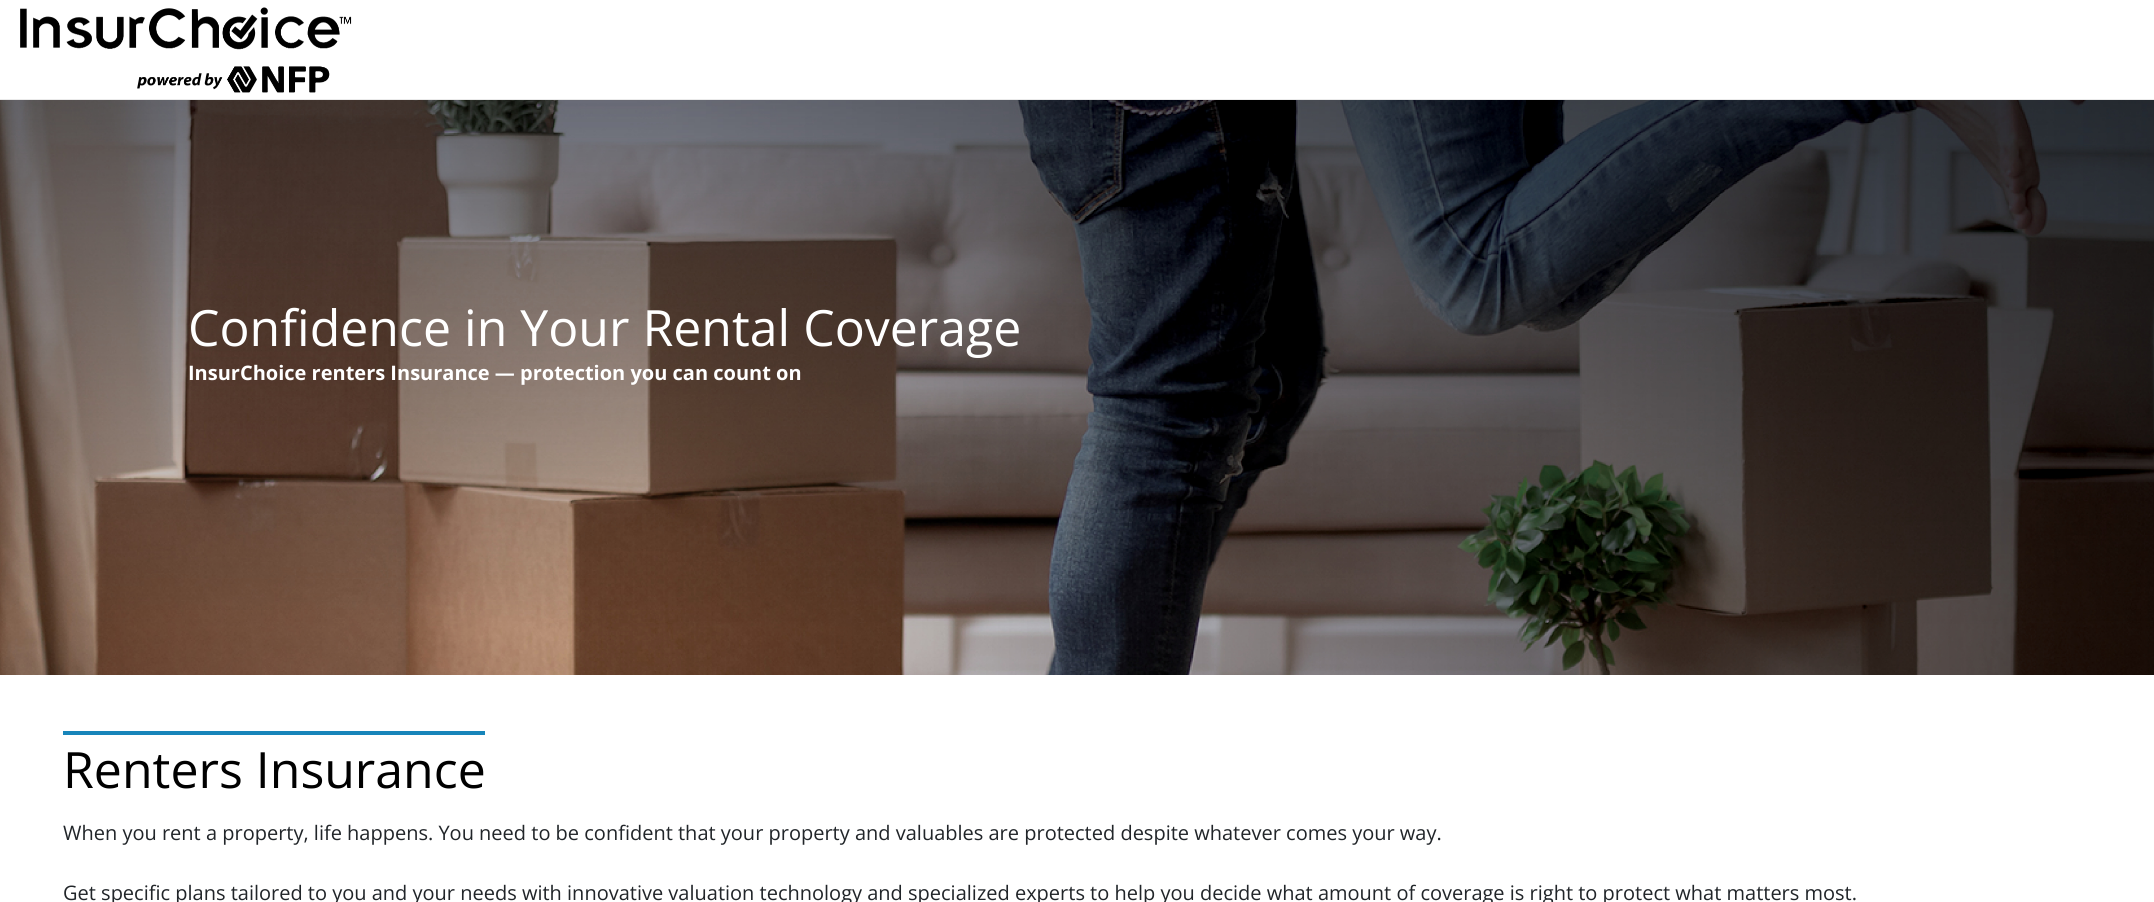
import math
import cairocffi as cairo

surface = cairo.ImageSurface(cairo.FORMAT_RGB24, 2154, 902)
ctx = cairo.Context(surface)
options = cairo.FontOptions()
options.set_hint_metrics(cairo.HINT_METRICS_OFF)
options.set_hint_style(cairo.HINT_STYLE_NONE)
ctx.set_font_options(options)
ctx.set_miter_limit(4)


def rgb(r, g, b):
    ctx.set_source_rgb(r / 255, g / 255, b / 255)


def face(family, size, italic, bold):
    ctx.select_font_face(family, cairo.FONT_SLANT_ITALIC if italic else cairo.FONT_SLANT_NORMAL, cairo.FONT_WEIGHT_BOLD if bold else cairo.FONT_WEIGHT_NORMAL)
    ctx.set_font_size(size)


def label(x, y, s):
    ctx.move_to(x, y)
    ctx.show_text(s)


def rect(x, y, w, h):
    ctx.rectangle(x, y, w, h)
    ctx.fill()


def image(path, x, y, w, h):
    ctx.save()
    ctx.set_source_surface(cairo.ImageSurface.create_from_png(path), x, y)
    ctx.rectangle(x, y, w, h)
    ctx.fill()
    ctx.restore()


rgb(255, 255, 255)
ctx.paint()
rgb(234, 234, 234)
rect(0, 99, 2154, 1)
image('image0.png', 20, 7, 332, 86)
image('image1.png', 0, 100, 2154, 575)
face('Open Sans', 50, 0, 0)
rgb(255, 255, 255)
label(188, 346, 'Confidence in Your Rental Coverage')
face('Open Sans', 20, 0, 1)
label(188, 380, 'InsurChoice renters Insurance — protection you can count on')
rgb(23, 133, 186)
rect(63, 731, 422, 4)
face('Open Sans', 50, 0, 0)
rgb(0, 0, 0)
label(63, 788, 'Renters Insurance')
face('Open Sans', 20, 0, 0)
rgb(33, 37, 41)
label(63, 840, 'When you rent a property, life happens. You need to be confident that your property and valuables are protected despite whatever comes your way.')
label(63, 900, 'Get specific plans tailored to you and your needs with innovative valuation technology and specialized experts to help you decide what amount of coverage is right to protect what matters most.')
surface.write_to_png('render.png')
